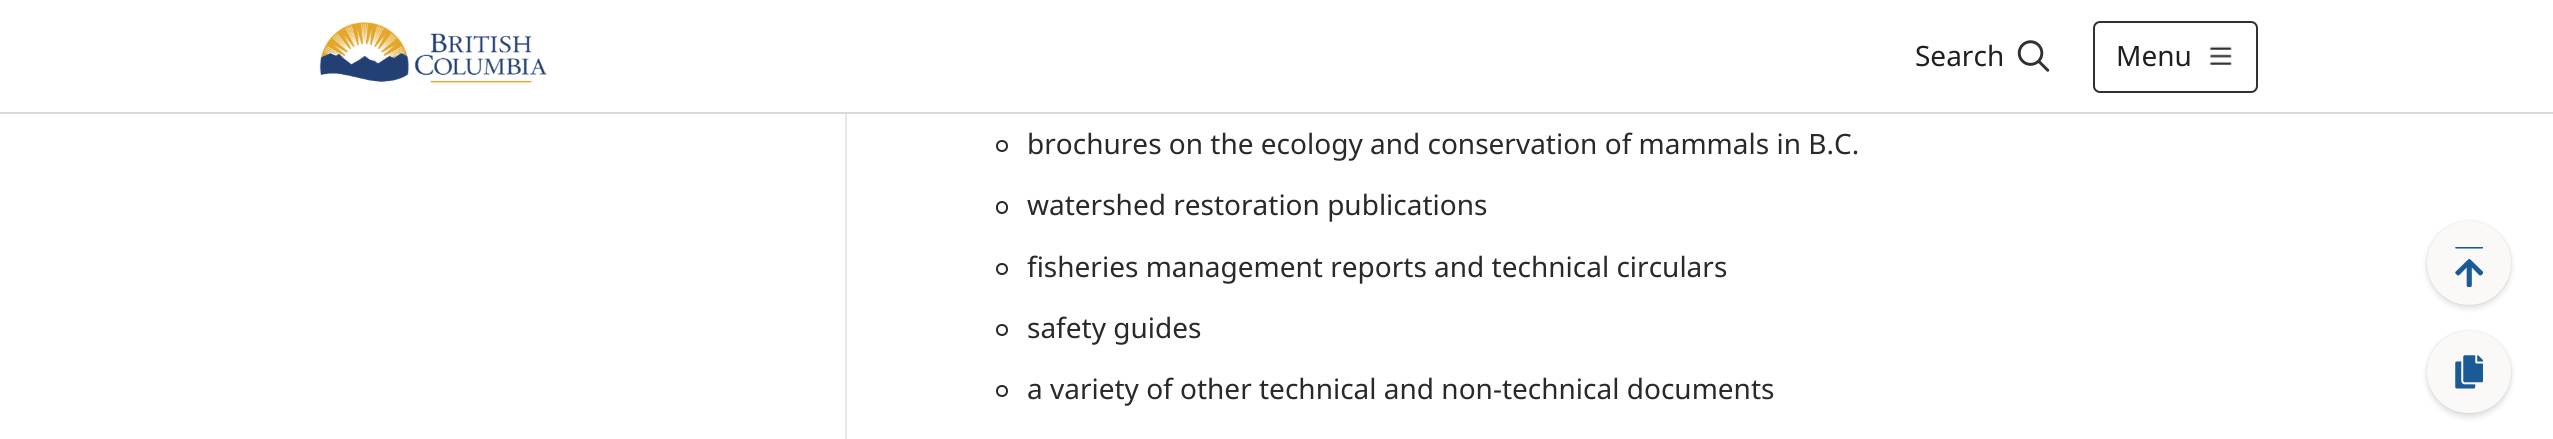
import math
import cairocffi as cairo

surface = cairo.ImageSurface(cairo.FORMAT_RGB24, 2553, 439)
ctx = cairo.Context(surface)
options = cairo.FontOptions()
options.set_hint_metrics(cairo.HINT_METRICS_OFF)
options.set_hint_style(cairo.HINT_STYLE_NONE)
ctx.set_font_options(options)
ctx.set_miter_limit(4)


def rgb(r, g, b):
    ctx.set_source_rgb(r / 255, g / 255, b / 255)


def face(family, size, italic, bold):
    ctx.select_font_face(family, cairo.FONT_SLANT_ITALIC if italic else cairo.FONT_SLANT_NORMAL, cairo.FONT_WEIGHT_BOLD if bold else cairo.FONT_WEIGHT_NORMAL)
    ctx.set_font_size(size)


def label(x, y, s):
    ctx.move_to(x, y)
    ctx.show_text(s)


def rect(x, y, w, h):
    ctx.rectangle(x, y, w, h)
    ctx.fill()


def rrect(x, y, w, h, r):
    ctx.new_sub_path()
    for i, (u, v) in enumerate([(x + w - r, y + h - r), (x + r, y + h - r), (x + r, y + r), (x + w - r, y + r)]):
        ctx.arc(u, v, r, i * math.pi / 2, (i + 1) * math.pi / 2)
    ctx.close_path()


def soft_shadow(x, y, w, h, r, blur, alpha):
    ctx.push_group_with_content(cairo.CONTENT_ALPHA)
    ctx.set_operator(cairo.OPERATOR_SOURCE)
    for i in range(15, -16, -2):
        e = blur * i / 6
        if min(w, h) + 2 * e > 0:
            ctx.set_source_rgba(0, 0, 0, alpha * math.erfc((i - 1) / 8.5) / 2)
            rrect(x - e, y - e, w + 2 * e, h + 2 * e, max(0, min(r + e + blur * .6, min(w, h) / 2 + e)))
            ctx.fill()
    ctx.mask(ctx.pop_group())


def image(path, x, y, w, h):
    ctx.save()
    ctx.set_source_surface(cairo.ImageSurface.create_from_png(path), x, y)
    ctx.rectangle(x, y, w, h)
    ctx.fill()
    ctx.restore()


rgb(255, 255, 255)
ctx.paint()
rgb(217, 217, 217)
rect(0, 112, 2553, 2)
image('image0.png', 319, 22, 228, 61)
face('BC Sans', 28, 0, 0)
rgb(32, 31, 30)
label(1915, 66, 'Search')
image('image1.png', 2017, 40, 33, 32)
rrect(2094, 22, 163, 70, 6)
rgb(50, 49, 48)
ctx.stroke()
rgb(32, 31, 30)
label(2116, 66, 'Menu')
image('image2.png', 2209, 46, 23, 19)
rgb(230, 230, 230)
rect(845, 114, 2, 325)
ctx.arc(1002, 146, 5, 0, 2 * math.pi)
rgb(41, 41, 41)
ctx.stroke()
label(1027, 154, 'brochures on the ecology and conservation of mammals in B.C.')
rrect(997, 202, 10, 11, 5)
ctx.stroke()
label(1027, 215, 'watershed restoration publications')
ctx.new_path()
ctx.arc(1002, 269, 5, 0, 2 * math.pi)
ctx.stroke()
label(1027, 277, 'fisheries management reports and technical circulars')
ctx.new_path()
ctx.arc(1002, 330, 5, 0, 2 * math.pi)
ctx.stroke()
label(1027, 338, 'safety guides')
ctx.new_path()
ctx.arc(1002, 391, 5, 0, 2 * math.pi)
ctx.stroke()
label(1027, 399, 'a variety of other technical and non-technical documents')
rgb(0, 0, 0)
soft_shadow(2427, 224, 84, 84, 42, 3, 0.13)
soft_shadow(2427, 221, 84, 84, 42, 1, 0.1)
rgb(250, 249, 248)
ctx.arc(2469, 263, 42, 0, 2 * math.pi)
ctx.fill()
image('image3.png', 2455, 247, 28, 40)
rgb(0, 0, 0)
soft_shadow(2427, 334, 84, 83, 41.5, 3, 0.13)
soft_shadow(2427, 331, 84, 82, 41, 1, 0.1)
rgb(250, 249, 248)
rrect(2427, 331, 84, 82, 41)
ctx.fill()
image('image4.png', 2455, 355, 28, 34)
surface.write_to_png('render.png')
